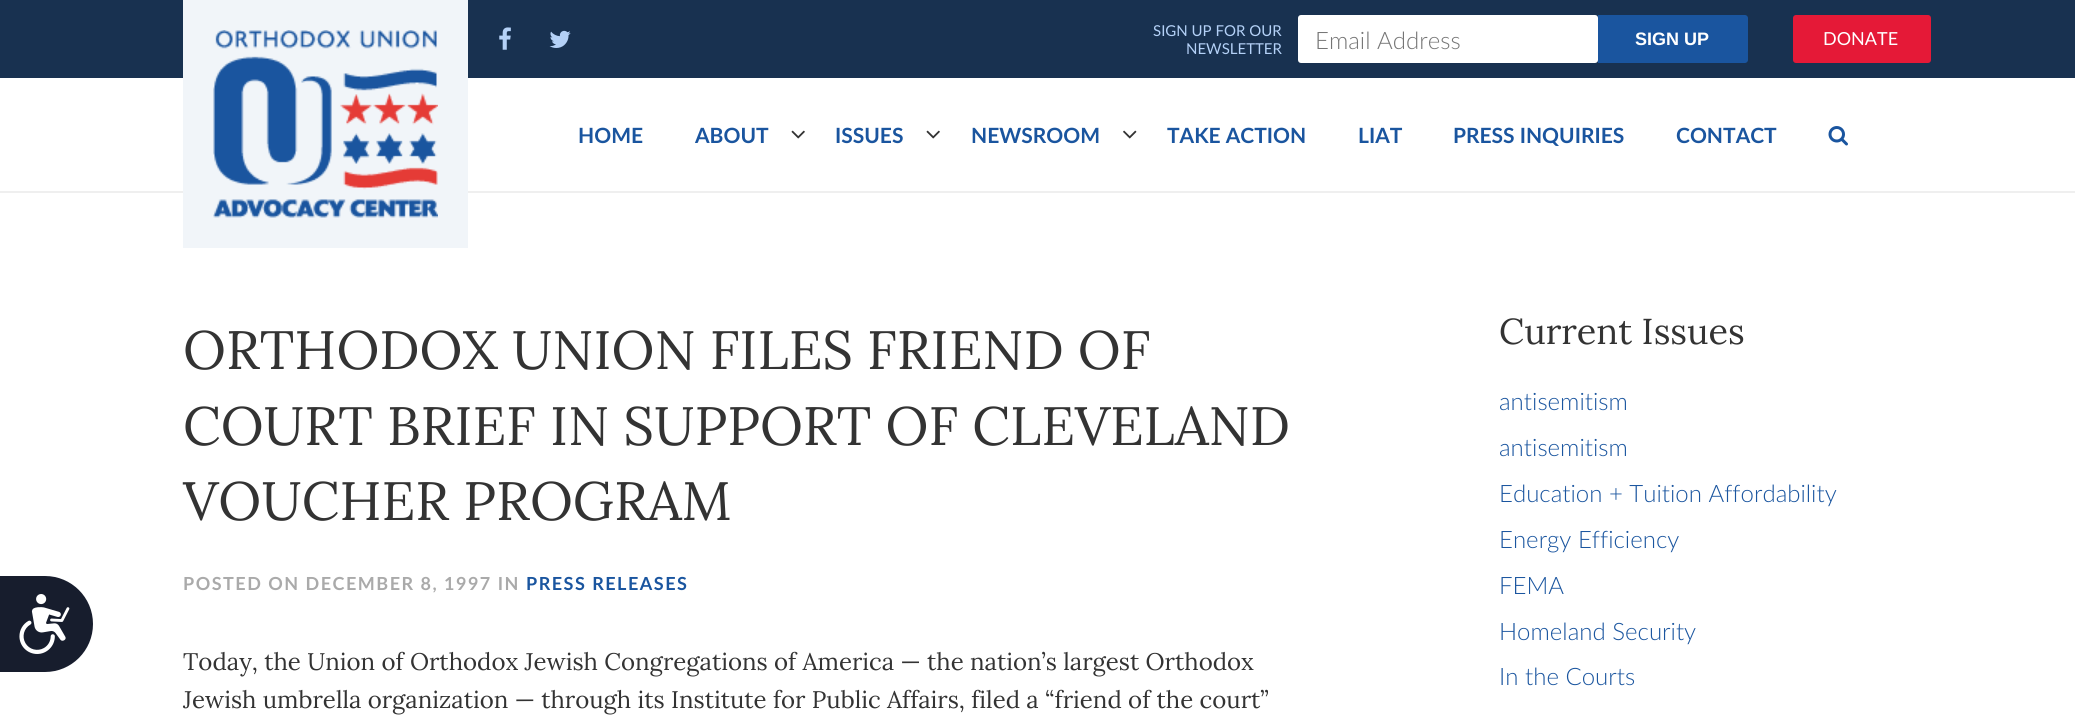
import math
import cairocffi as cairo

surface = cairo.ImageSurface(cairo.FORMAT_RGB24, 2075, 720)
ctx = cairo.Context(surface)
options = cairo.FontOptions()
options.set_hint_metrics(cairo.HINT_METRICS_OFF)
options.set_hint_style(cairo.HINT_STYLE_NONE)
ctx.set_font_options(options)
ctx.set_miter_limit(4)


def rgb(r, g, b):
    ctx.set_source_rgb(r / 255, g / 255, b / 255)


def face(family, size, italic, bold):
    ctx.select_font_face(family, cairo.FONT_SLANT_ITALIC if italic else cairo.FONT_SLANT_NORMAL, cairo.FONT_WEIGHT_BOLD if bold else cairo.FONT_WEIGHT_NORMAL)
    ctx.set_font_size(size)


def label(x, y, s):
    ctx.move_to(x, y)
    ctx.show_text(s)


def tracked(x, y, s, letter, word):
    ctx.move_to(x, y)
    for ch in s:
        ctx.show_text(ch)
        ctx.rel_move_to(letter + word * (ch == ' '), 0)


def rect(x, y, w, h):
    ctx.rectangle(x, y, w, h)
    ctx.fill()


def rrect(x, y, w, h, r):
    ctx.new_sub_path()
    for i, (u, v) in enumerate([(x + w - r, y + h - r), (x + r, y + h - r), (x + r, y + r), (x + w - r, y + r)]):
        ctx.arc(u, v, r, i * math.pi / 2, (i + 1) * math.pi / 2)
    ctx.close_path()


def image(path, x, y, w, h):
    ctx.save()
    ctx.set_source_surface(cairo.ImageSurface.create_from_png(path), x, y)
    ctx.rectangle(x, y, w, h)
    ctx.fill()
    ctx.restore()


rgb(255, 255, 255)
ctx.paint()
rgb(24, 49, 80)
rect(0, 0, 2075, 78)
rgb(239, 239, 239)
rect(0, 191, 2075, 2)
rgb(241, 245, 249)
rect(183, 0, 285, 248)
image('image0.png', 213, 30, 225, 188)
image('image1.png', 499, 27, 12, 23)
image('image2.png', 549, 30, 22, 18)
face('Lato', 15, 0, 0)
rgb(180, 209, 247)
label(1153, 36, 'SIGN UP FOR OUR')
label(1186, 54, 'NEWSLETTER')
rgb(255, 255, 255)
rrect(1298, 15, 300, 48, 3)
ctx.fill()
face('Lato Light', 24, 0, 0)
rgb(117, 117, 117)
label(1315, 49, 'Email Address')
rgb(26, 85, 159)
ctx.new_path()
ctx.move_to(1598, 15)
ctx.line_to(1745, 15)
ctx.curve_to(1746.5, 15, 1748, 16.5, 1748, 18)
ctx.line_to(1748, 60)
ctx.curve_to(1748, 61.5, 1746.5, 63, 1745, 63)
ctx.line_to(1598, 63)
ctx.close_path()
ctx.fill()
face('Liberation Sans', 18, 0, 1)
rgb(255, 255, 255)
label(1635, 45, 'SIGN UP')
rgb(229, 25, 55)
rrect(1794, 16, 136, 46, 2)
ctx.fill_preserve()
ctx.stroke()
face('Lato', 18, 0, 0)
rgb(255, 255, 255)
label(1823, 45, 'DONATE')
face('Lato', 21, 0, 1)
rgb(26, 85, 159)
label(578, 143, 'HOME')
label(695, 143, 'ABOUT')
image('image3.png', 791, 130, 14, 9)
label(835, 143, 'ISSUES')
image('image3.png', 926, 130, 14, 9)
label(971, 143, 'NEWSROOM')
image('image4.png', 1123, 130, 14, 9)
label(1167, 143, 'TAKE ACTION')
label(1358, 143, 'LIAT')
label(1453, 143, 'PRESS INQUIRIES')
label(1676, 143, 'CONTACT')
image('image5.png', 1828, 126, 20, 20)
rgb(23, 29, 45)
ctx.new_path()
ctx.move_to(0, 576)
ctx.line_to(45, 576)
ctx.curve_to(71.5, 576, 93, 597.5, 93, 624)
ctx.curve_to(93, 650.5, 71.5, 672, 45, 672)
ctx.line_to(0, 672)
ctx.close_path()
ctx.fill()
image('image6.png', 19, 594, 51, 60)
face('Lora', 54, 0, 0)
rgb(51, 51, 51)
label(183, 369, 'ORTHODOX UNION FILES FRIEND OF')
label(183, 445, 'COURT BRIEF IN SUPPORT OF CLEVELAND')
label(183, 520, 'VOUCHER PROGRAM')
face('Lato', 18, 0, 1)
rgb(170, 170, 170)
tracked(183, 590, 'POSTED ON DECEMBER 8, 1997 IN', 1.5, 0)
rgb(26, 85, 159)
tracked(526, 590, 'PRESS RELEASES', 1.5, 0)
face('Lora', 24, 0, 0)
rgb(51, 51, 51)
label(183, 670, 'Today, the Union of Orthodox Jewish Congregations of America — the nation’s largest Orthodox')
label(183, 708, 'Jewish umbrella organization — through its Institute for Public Affairs, filed a “friend of the court”')
face('Lora', 36, 0, 0)
label(1499, 344, 'Current Issues')
face('Lato Light', 24, 0, 0)
rgb(26, 85, 159)
label(1499, 410, 'antisemitism')
label(1499, 456, 'antisemitism')
label(1499, 502, 'Education + Tuition Affordability')
label(1499, 548, 'Energy Efficiency')
label(1499, 594, 'FEMA')
label(1499, 640, 'Homeland Security')
label(1499, 685, 'In the Courts')
surface.write_to_png('render.png')
